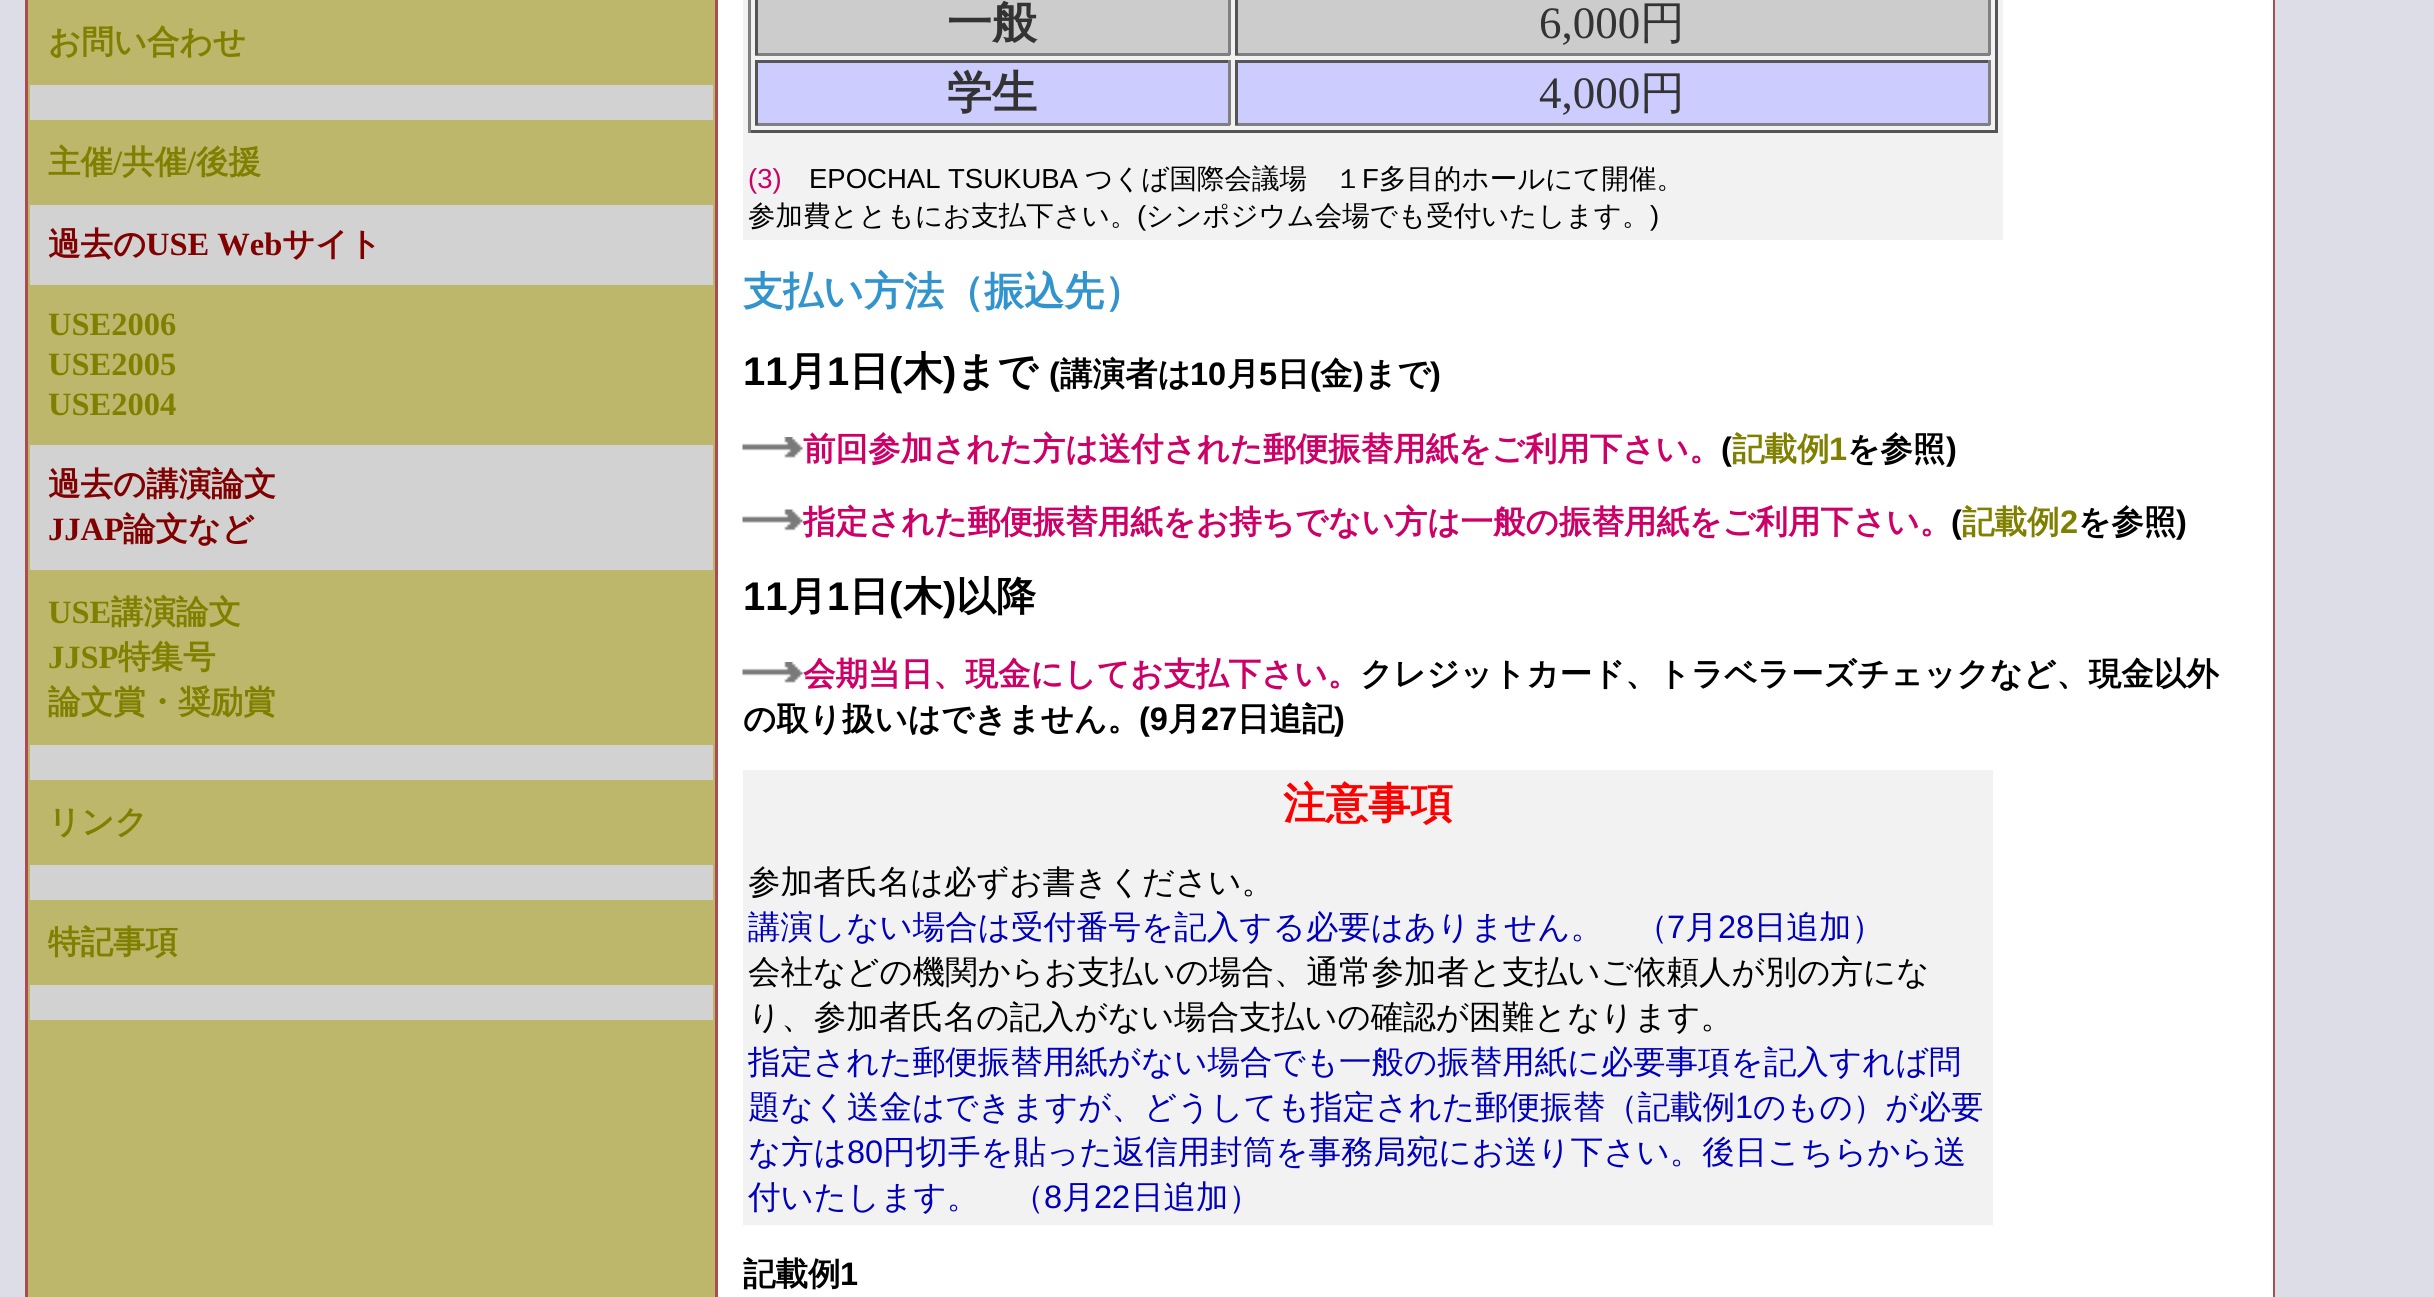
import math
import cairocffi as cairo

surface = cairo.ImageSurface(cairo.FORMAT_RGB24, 2434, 1297)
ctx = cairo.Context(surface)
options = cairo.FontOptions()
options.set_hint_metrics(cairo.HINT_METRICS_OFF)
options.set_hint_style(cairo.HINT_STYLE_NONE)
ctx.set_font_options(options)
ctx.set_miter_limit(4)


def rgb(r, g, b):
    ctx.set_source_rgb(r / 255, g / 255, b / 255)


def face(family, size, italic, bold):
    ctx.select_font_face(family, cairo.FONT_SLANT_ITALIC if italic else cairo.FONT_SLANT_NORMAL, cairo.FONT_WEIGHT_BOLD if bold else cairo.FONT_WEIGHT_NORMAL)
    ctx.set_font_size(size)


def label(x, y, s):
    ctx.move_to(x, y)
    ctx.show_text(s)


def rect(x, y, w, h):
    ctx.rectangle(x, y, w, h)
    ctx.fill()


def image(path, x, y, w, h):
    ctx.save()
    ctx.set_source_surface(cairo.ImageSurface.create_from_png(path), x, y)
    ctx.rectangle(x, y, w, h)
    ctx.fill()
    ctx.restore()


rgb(221, 221, 232)
ctx.paint()
rgb(172, 76, 81)
rect(25, 0, 2250, 1297)
rgb(189, 183, 107)
rect(28, 0, 687, 1297)
face('WenQuanYi Zen Hei', 32.5, 0, 1)
rgb(128, 128, 0)
label(48, 53, 'お問い合わせ')
rgb(210, 210, 210)
rect(30, 85, 683, 35)
rgb(128, 128, 0)
label(48, 173, '主催')
face('Liberation Serif', 32.5, 0, 1)
label(113, 173, '/')
face('WenQuanYi Zen Hei', 32.5, 0, 1)
label(122, 173, '共催')
face('Liberation Serif', 32.5, 0, 1)
label(187, 173, '/')
face('WenQuanYi Zen Hei', 32.5, 0, 1)
label(196, 173, '後援')
rgb(210, 210, 210)
rect(30, 205, 683, 80)
rgb(129, 0, 0)
label(48, 255, '過去の')
face('Liberation Serif', 32.5, 0, 1)
label(146, 255, 'USE Web')
face('WenQuanYi Zen Hei', 32.5, 0, 1)
label(282, 255, 'サイト')
face('Liberation Serif', 32.5, 0, 1)
rgb(128, 128, 0)
label(48, 335, 'USE2006')
label(48, 375, 'USE2005')
label(48, 415, 'USE2004')
rgb(210, 210, 210)
rect(30, 445, 683, 125)
face('WenQuanYi Zen Hei', 32.5, 0, 1)
rgb(129, 0, 0)
label(48, 495, '過去の講演論文')
face('Liberation Serif', 32.5, 0, 1)
label(48, 540, 'JJAP')
face('WenQuanYi Zen Hei', 32.5, 0, 1)
label(123, 540, '論文など')
face('Liberation Serif', 32.5, 0, 1)
rgb(128, 128, 0)
label(48, 623, 'USE')
face('WenQuanYi Zen Hei', 32.5, 0, 1)
label(111, 623, '講演論文')
face('Liberation Serif', 32.5, 0, 1)
label(48, 668, 'JJSP')
face('WenQuanYi Zen Hei', 32.5, 0, 1)
label(118, 668, '特集号')
label(48, 713, '論文賞・奨励賞')
rgb(210, 210, 210)
rect(30, 745, 683, 35)
rgb(128, 128, 0)
label(48, 833, 'リンク')
rgb(210, 210, 210)
rect(30, 865, 683, 35)
rgb(128, 128, 0)
label(48, 953, '特記事項')
rgb(210, 210, 210)
rect(30, 985, 683, 35)
rgb(255, 255, 255)
rect(718, 0, 1555, 1297)
rgb(242, 242, 242)
rect(743, 0, 1260, 240)
rgb(85, 85, 85)
rect(1995, 0, 3, 133)
rect(748, 130, 1250, 3)
rgb(128, 128, 128)
rect(748, 0, 3, 133)
rgb(204, 204, 204)
rect(758, 0, 470, 53)
rgb(128, 128, 128)
rect(1228, 0, 3, 55)
rect(755, 53, 475, 3)
rgb(85, 85, 85)
rect(755, 0, 3, 55)
face('WenQuanYi Zen Hei', 45, 0, 1)
rgb(51, 51, 51)
label(947, 38, '一般')
rgb(204, 204, 204)
rect(1238, 0, 750, 53)
rgb(128, 128, 128)
rect(1988, 0, 3, 55)
rect(1235, 53, 755, 3)
rgb(85, 85, 85)
rect(1235, 0, 3, 55)
face('Liberation Serif', 45, 0, 0)
rgb(51, 51, 51)
label(1539, 38, '6,000')
face('WenQuanYi Zen Hei Medium', 45, 0, 0)
label(1640, 38, '円')
rgb(204, 204, 255)
rect(758, 63, 470, 60)
rgb(85, 85, 85)
rect(755, 60, 475, 3)
rgb(128, 128, 128)
rect(1228, 60, 3, 65)
rect(755, 123, 475, 3)
rgb(85, 85, 85)
rect(755, 60, 3, 65)
face('WenQuanYi Zen Hei', 45, 0, 1)
rgb(51, 51, 51)
label(947, 108, '学生')
rgb(204, 204, 255)
rect(1238, 63, 750, 60)
rgb(85, 85, 85)
rect(1235, 60, 755, 3)
rgb(128, 128, 128)
rect(1988, 60, 3, 65)
rect(1235, 123, 755, 3)
rgb(85, 85, 85)
rect(1235, 60, 3, 65)
face('Liberation Serif', 45, 0, 0)
rgb(51, 51, 51)
label(1539, 108, '4,000')
face('WenQuanYi Zen Hei Medium', 45, 0, 0)
label(1640, 108, '円')
face('Liberation Sans', 27.5, 0, 0)
rgb(204, 0, 102)
label(748, 188, '(3)')
rgb(0, 0, 0)
label(809, 188, 'EPOCHAL TSUKUBA')
face('WenQuanYi Zen Hei Medium', 27.5, 0, 0)
label(1085, 188, 'つくば国際会議場　１')
face('Liberation Sans', 27.5, 0, 0)
label(1362, 188, 'F')
face('WenQuanYi Zen Hei Medium', 27.5, 0, 0)
label(1379, 188, '多目的ホールにて開催。')
label(748, 225, '参加費とともにお支払下さい。')
face('Liberation Sans', 27.5, 0, 0)
label(1137, 225, '(')
face('WenQuanYi Zen Hei Medium', 27.5, 0, 0)
label(1146, 225, 'シンポジウム会場でも受付いたします。')
face('Liberation Sans', 27.5, 0, 0)
label(1650, 225, ')')
face('WenQuanYi Zen Hei', 40, 0, 1)
rgb(50, 148, 204)
label(743, 305, '支払い方法（振込先）')
face('Liberation Sans', 40, 0, 1)
rgb(0, 0, 0)
label(743, 385, '11')
face('WenQuanYi Zen Hei', 40, 0, 1)
label(787, 385, '月')
face('Liberation Sans', 40, 0, 1)
label(827, 385, '1')
face('WenQuanYi Zen Hei', 40, 0, 1)
label(849, 385, '日')
face('Liberation Sans', 40, 0, 1)
label(889, 385, '(')
face('WenQuanYi Zen Hei', 40, 0, 1)
label(903, 385, '木')
face('Liberation Sans', 40, 0, 1)
label(943, 385, ')')
face('WenQuanYi Zen Hei', 40, 0, 1)
label(956, 385, 'まで')
face('Liberation Sans', 32.5, 0, 1)
label(1049, 385, '(')
face('WenQuanYi Zen Hei', 32.5, 0, 1)
label(1060, 385, '講演者は')
face('Liberation Sans', 32.5, 0, 1)
label(1190, 385, '10')
face('WenQuanYi Zen Hei', 32.5, 0, 1)
label(1227, 385, '月')
face('Liberation Sans', 32.5, 0, 1)
label(1259, 385, '5')
face('WenQuanYi Zen Hei', 32.5, 0, 1)
label(1277, 385, '日')
face('Liberation Sans', 32.5, 0, 1)
label(1310, 385, '(')
face('WenQuanYi Zen Hei', 32.5, 0, 1)
label(1320, 385, '金')
face('Liberation Sans', 32.5, 0, 1)
label(1353, 385, ')')
face('WenQuanYi Zen Hei', 32.5, 0, 1)
label(1364, 385, 'まで')
face('Liberation Sans', 32.5, 0, 1)
label(1430, 385, ')')
image('image0.png', 742, 437, 61, 21)
face('WenQuanYi Zen Hei', 32.5, 0, 1)
rgb(204, 0, 102)
label(803, 460, '前回参加された方は送付された郵便振替用紙をご利用下さい。')
face('Liberation Sans', 32.5, 0, 1)
rgb(0, 0, 0)
label(1721, 460, '(')
face('WenQuanYi Zen Hei', 32.5, 0, 1)
rgb(128, 128, 0)
label(1732, 460, '記載例')
face('Liberation Sans', 32.5, 0, 1)
label(1829, 460, '1')
face('WenQuanYi Zen Hei', 32.5, 0, 1)
rgb(0, 0, 0)
label(1847, 460, 'を参照')
face('Liberation Sans', 32.5, 0, 1)
label(1946, 460, ')')
image('image1.png', 742, 509, 61, 22)
face('WenQuanYi Zen Hei', 32.5, 0, 1)
rgb(204, 0, 102)
label(803, 533, '指定された郵便振替用紙をお持ちでない方は一般の振替用紙をご利用下さい。')
face('Liberation Sans', 32.5, 0, 1)
rgb(0, 0, 0)
label(1951, 533, '(')
face('WenQuanYi Zen Hei', 32.5, 0, 1)
rgb(128, 128, 0)
label(1962, 533, '記載例')
face('Liberation Sans', 32.5, 0, 1)
label(2060, 533, '2')
face('WenQuanYi Zen Hei', 32.5, 0, 1)
rgb(0, 0, 0)
label(2078, 533, 'を参照')
face('Liberation Sans', 32.5, 0, 1)
label(2176, 533, ')')
face('Liberation Sans', 40, 0, 1)
label(743, 610, '11')
face('WenQuanYi Zen Hei', 40, 0, 1)
label(787, 610, '月')
face('Liberation Sans', 40, 0, 1)
label(827, 610, '1')
face('WenQuanYi Zen Hei', 40, 0, 1)
label(849, 610, '日')
face('Liberation Sans', 40, 0, 1)
label(889, 610, '(')
face('WenQuanYi Zen Hei', 40, 0, 1)
label(903, 610, '木')
face('Liberation Sans', 40, 0, 1)
label(943, 610, ')')
face('WenQuanYi Zen Hei', 40, 0, 1)
label(956, 610, '以降')
image('image0.png', 742, 662, 61, 21)
face('WenQuanYi Zen Hei', 32.5, 0, 1)
rgb(204, 0, 102)
label(803, 685, '会期当日、現金にしてお支払下さい。')
rgb(0, 0, 0)
label(1360, 685, 'クレジットカード、トラベラーズチェックなど、現金以外')
label(743, 730, 'の取り扱いはできません。')
face('Liberation Sans', 32.5, 0, 1)
label(1139, 730, '(9')
face('WenQuanYi Zen Hei', 32.5, 0, 1)
label(1168, 730, '月')
face('Liberation Sans', 32.5, 0, 1)
label(1201, 730, '27')
face('WenQuanYi Zen Hei', 32.5, 0, 1)
label(1237, 730, '日追記')
face('Liberation Sans', 32.5, 0, 1)
label(1334, 730, ')')
rgb(242, 242, 242)
rect(743, 770, 1250, 455)
face('WenQuanYi Zen Hei', 42.5, 0, 1)
rgb(255, 0, 0)
label(1283, 818, '注意事項')
face('WenQuanYi Zen Hei Medium', 32.5, 0, 0)
rgb(0, 0, 0)
label(748, 893, '参加者氏名は必ずお書きください。')
rgb(0, 0, 187)
label(748, 938, '講演しない場合は受付番号を記入する必要はありません。　（')
face('Liberation Sans', 32.5, 0, 0)
label(1667, 938, '7')
face('WenQuanYi Zen Hei Medium', 32.5, 0, 0)
label(1685, 938, '月')
face('Liberation Sans', 32.5, 0, 0)
label(1718, 938, '28')
face('WenQuanYi Zen Hei Medium', 32.5, 0, 0)
label(1754, 938, '日追加）')
rgb(0, 0, 0)
label(748, 983, '会社などの機関からお支払いの場合、通常参加者と支払いご依頼人が別の方にな')
label(748, 1028, 'り、参加者氏名の記入がない場合支払いの確認が困難となります。')
rgb(0, 0, 187)
label(748, 1073, '指定された郵便振替用紙がない場合でも一般の振替用紙に必要事項を記入すれば問')
label(748, 1118, '題なく送金はできますが、どうしても指定された郵便振替（記載例')
face('Liberation Sans', 32.5, 0, 0)
label(1735, 1118, '1')
face('WenQuanYi Zen Hei Medium', 32.5, 0, 0)
label(1753, 1118, 'のもの）が必要')
label(748, 1163, 'な方は')
face('Liberation Sans', 32.5, 0, 0)
label(847, 1163, '80')
face('WenQuanYi Zen Hei Medium', 32.5, 0, 0)
label(883, 1163, '円切手を貼った返信用封筒を事務局宛にお送り下さい。後日こちらから送')
label(748, 1208, '付いたします。　（')
face('Liberation Sans', 32.5, 0, 0)
label(1044, 1208, '8')
face('WenQuanYi Zen Hei Medium', 32.5, 0, 0)
label(1062, 1208, '月')
face('Liberation Sans', 32.5, 0, 0)
label(1094, 1208, '22')
face('WenQuanYi Zen Hei Medium', 32.5, 0, 0)
label(1131, 1208, '日追加）')
face('WenQuanYi Zen Hei', 32.5, 0, 1)
rgb(0, 0, 0)
label(743, 1285, '記載例')
face('Liberation Sans', 32.5, 0, 1)
label(840, 1285, '1')
surface.write_to_png('render.png')
